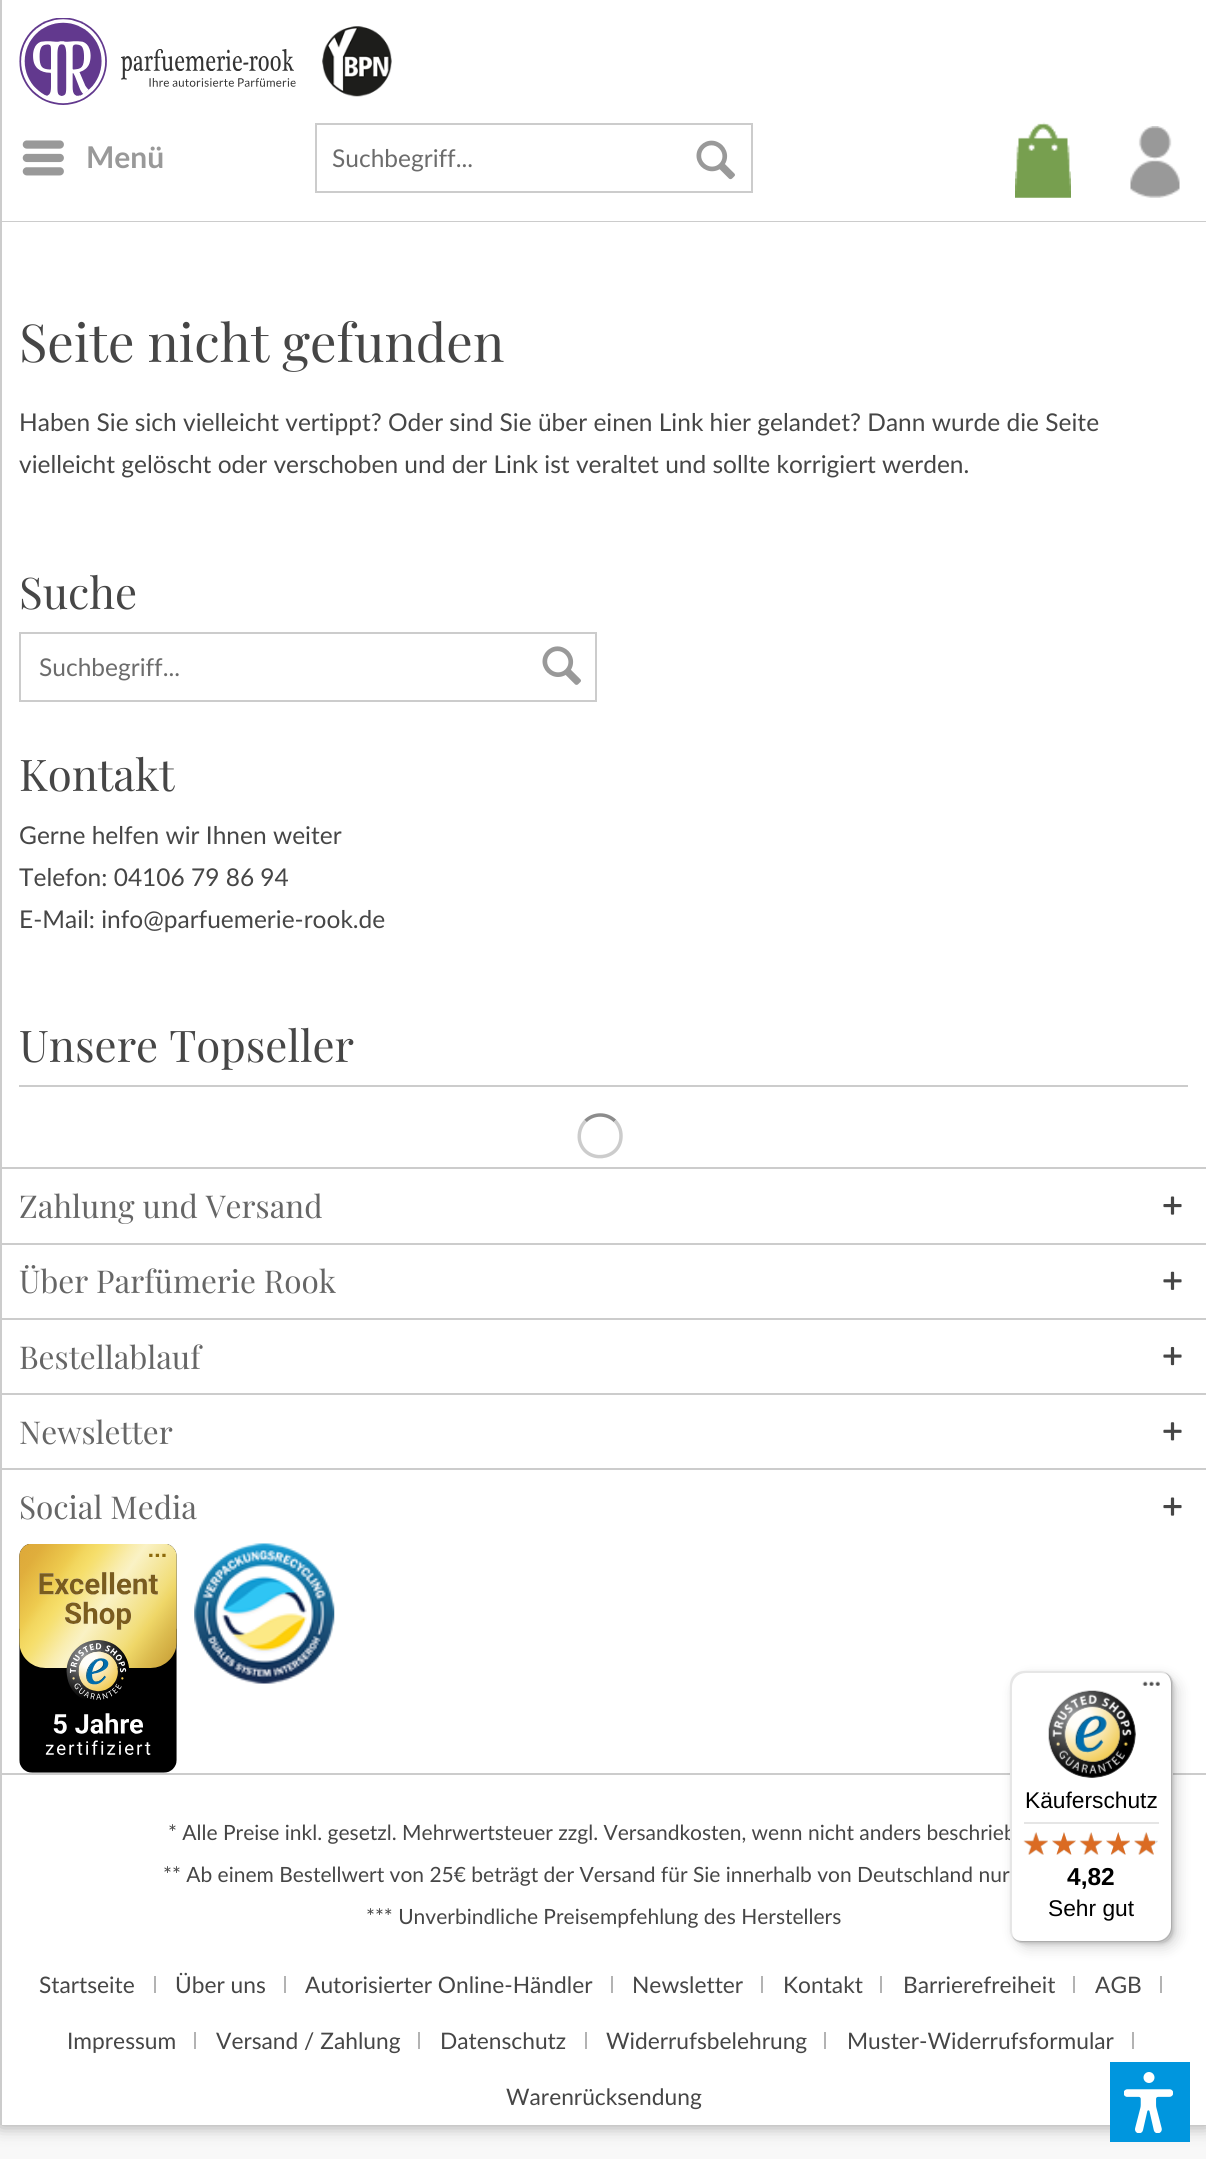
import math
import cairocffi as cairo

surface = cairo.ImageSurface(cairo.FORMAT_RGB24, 1206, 2159)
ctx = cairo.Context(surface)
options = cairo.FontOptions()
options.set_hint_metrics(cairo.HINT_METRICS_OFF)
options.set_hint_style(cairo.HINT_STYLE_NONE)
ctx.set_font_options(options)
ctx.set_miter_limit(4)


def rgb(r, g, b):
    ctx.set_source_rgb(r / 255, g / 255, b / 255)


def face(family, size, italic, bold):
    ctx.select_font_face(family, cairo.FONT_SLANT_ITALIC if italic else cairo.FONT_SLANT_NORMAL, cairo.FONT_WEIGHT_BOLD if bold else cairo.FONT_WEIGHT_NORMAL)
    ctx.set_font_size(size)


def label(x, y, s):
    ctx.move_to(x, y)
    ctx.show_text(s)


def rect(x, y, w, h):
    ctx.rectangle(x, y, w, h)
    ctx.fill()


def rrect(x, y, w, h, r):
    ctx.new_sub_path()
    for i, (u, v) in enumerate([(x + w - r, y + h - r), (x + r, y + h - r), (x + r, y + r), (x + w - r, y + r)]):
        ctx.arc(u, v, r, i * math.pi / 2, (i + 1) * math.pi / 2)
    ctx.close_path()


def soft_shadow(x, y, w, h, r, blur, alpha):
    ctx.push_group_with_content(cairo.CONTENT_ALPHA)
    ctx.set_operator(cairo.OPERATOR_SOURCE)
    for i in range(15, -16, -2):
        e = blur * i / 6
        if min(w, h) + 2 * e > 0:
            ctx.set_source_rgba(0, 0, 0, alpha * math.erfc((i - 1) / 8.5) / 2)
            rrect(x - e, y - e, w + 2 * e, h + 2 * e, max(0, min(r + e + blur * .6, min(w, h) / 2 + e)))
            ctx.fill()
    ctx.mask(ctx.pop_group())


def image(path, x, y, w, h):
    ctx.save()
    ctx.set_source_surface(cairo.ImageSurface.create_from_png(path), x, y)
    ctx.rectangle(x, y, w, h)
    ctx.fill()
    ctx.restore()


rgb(248, 248, 248)
ctx.paint()
rgb(153, 153, 153)
soft_shadow(0, 0, 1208, 2125, 0, 9, 1)
rgb(255, 255, 255)
rect(2, 0, 1204, 2125)
rgb(204, 204, 204)
rect(0, 0, 2, 2125)
rect(2, 221, 1204, 1)
image('image0.png', 19, 18, 277, 87)
image('image1.png', 322, 26, 70, 71)
image('image2.png', 22, 140, 42, 36)
face('Lato', 30, 0, 1)
rgb(153, 153, 153)
label(86, 168, 'Menü')
ctx.rectangle(316, 124, 436, 68)
rgb(204, 204, 204)
ctx.stroke()
face('Lato', 24.5, 0, 0)
rgb(108, 108, 108)
label(332, 167, 'Suchbegriff...')
image('image3.png', 696, 140, 39, 40)
image('image4.png', 1015, 122, 56, 76)
image('image5.png', 1130, 126, 50, 72)
face('Playfair Display', 52.5, 0, 0)
rgb(70, 70, 70)
label(19, 362, 'Seite nicht gefunden')
face('Lato', 24.5, 0, 0)
label(19, 431, 'Haben Sie sich vielleicht vertippt? Oder sind Sie über einen Link hier gelandet? Dann wurde die Seite')
label(19, 473, 'vielleicht gelöscht oder verschoben und der Link ist veraltet und sollte korrigiert werden.')
face('Playfair Display', 43.75, 0, 0)
label(19, 609, 'Suche')
rgb(204, 204, 204)
rect(19, 632, 578, 2)
rect(19, 700, 508, 2)
rect(19, 632, 2, 70)
face('Lato', 24.5, 0, 0)
rgb(108, 108, 108)
label(39, 676, 'Suchbegriff...')
rgb(204, 204, 204)
rect(595, 632, 2, 70)
rect(527, 700, 70, 2)
image('image6.png', 542, 646, 39, 39)
face('Playfair Display', 43.75, 0, 0)
rgb(70, 70, 70)
label(19, 791, 'Kontakt')
face('Lato', 24.5, 0, 0)
label(19, 844, 'Gerne helfen wir Ihnen weiter')
label(19, 886, 'Telefon: 04106 79 86 94')
label(19, 928, 'E-Mail: info@parfuemerie-rook.de')
rgb(204, 204, 204)
rect(19, 1085, 1169, 2)
face('Playfair Display', 43.75, 0, 0)
rgb(70, 70, 70)
label(19, 1062, 'Unsere Topseller')
ctx.new_path()
ctx.move_to(585.5, 1121)
ctx.curve_to(593.5, 1113, 607, 1113, 615, 1121)
rgb(140, 140, 140)
ctx.set_line_width(3.5)
ctx.stroke()
ctx.new_path()
ctx.move_to(615, 1121)
ctx.curve_to(619, 1125, 621, 1130, 621, 1136)
ctx.curve_to(621, 1161, 584.5, 1164.5, 579.5, 1140)
ctx.curve_to(578.5, 1133, 580.5, 1126, 585.5, 1121)
rgb(204, 204, 204)
ctx.stroke()
rect(2, 1167, 1204, 2)
face('Playfair Display', 31.5, 0, 0)
rgb(102, 102, 102)
label(19, 1218, 'Zahlung und Versand')
image('image7.png', 1163, 1196, 19, 19)
rgb(204, 204, 204)
rect(2, 1243, 1204, 2)
rgb(102, 102, 102)
label(19, 1293, 'Über Parfümerie Rook')
image('image8.png', 1163, 1271, 19, 19)
rgb(204, 204, 204)
rect(2, 1318, 1204, 2)
rgb(102, 102, 102)
label(19, 1369, 'Bestellablauf')
image('image9.png', 1163, 1346, 19, 20)
rgb(204, 204, 204)
rect(2, 1393, 1204, 2)
rgb(102, 102, 102)
label(19, 1444, 'Newsletter')
image('image10.png', 1163, 1422, 19, 19)
rgb(204, 204, 204)
rect(2, 1468, 1204, 2)
rect(2, 1773, 1204, 2)
rgb(102, 102, 102)
label(19, 1519, 'Social Media')
image('image7.png', 1163, 1497, 19, 19)
image('image11.png', 19, 1544, 158, 229)
image('image12.png', 194, 1543, 141, 141)
face('Lato', 21, 0, 0)
rgb(70, 70, 70)
label(168, 1840, '* Alle Preise inkl. gesetzl. Mehrwertsteuer zzgl. Versandkosten, wenn nicht anders beschrieb')
label(163, 1882, '** Ab einem Bestellwert von 25€ beträgt der Versand für Sie innerhalb von Deutschland nur')
label(366, 1924, '*** Unverbindliche Preisempfehlung des Herstellers')
face('Lato', 22.75, 0, 0)
label(39, 1993, 'Startseite')
rgb(179, 179, 179)
rect(154, 1976, 2, 17)
rgb(70, 70, 70)
label(175, 1993, 'Über uns')
rgb(179, 179, 179)
rect(284, 1976, 2, 17)
rgb(70, 70, 70)
label(305, 1993, 'Autorisierter Online-Händler')
rgb(179, 179, 179)
rect(611, 1976, 2, 17)
rgb(70, 70, 70)
label(632, 1993, 'Newsletter')
rgb(179, 179, 179)
rect(761, 1976, 2, 17)
rgb(70, 70, 70)
label(783, 1993, 'Kontakt')
rgb(179, 179, 179)
rect(880, 1976, 2, 17)
rgb(70, 70, 70)
label(903, 1993, 'Barrierefreiheit')
rgb(179, 179, 179)
rect(1073, 1976, 2, 17)
rgb(70, 70, 70)
label(1095, 1993, 'AGB')
rgb(179, 179, 179)
rect(1160, 1976, 2, 17)
rgb(70, 70, 70)
label(67, 2049, 'Impressum')
rgb(179, 179, 179)
rect(194, 2032, 2, 17)
rgb(70, 70, 70)
label(216, 2049, 'Versand / Zahlung')
rgb(179, 179, 179)
rect(418, 2032, 2, 17)
rgb(70, 70, 70)
label(440, 2049, 'Datenschutz')
rgb(179, 179, 179)
rect(585, 2032, 2, 17)
rgb(70, 70, 70)
label(606, 2049, 'Widerrufsbelehrung')
rgb(179, 179, 179)
rect(824, 2032, 2, 17)
rgb(70, 70, 70)
label(847, 2049, 'Muster-Widerrufsformular')
rgb(179, 179, 179)
rect(1132, 2032, 2, 17)
rgb(70, 70, 70)
label(506, 2105, 'Warenrücksendung')
rgb(0, 0, 0)
soft_shadow(1015, 1677, 163, 271, 14, 7, 0.15)
soft_shadow(1012, 1673, 162, 271, 14, 2, 0.15)
rgb(255, 255, 255)
rrect(1010, 1671, 163, 272, 14)
ctx.fill()
ctx.set_source_rgba(0, 0, 0, 0.1)
ctx.new_path()
ctx.move_to(1026, 1673)
ctx.line_to(1160, 1673)
ctx.curve_to(1165, 1673, 1169, 1675, 1172, 1679)
ctx.curve_to(1169, 1674, 1165, 1671, 1159, 1671)
ctx.line_to(1024, 1671)
ctx.curve_to(1016, 1671, 1010, 1677, 1010, 1685)
ctx.line_to(1010, 1929)
ctx.curve_to(1010, 1935, 1013, 1939, 1018, 1942)
ctx.curve_to(1014, 1939, 1012, 1935, 1012, 1930)
ctx.line_to(1012, 1687)
ctx.curve_to(1012, 1679, 1018, 1673, 1026, 1673)
ctx.close_path()
ctx.fill()
ctx.set_source_rgba(0, 0, 0, 0.2)
ctx.new_path()
ctx.move_to(1013, 1937)
ctx.curve_to(1015, 1941, 1019, 1943, 1024, 1943)
ctx.line_to(1159, 1943)
ctx.curve_to(1167, 1943, 1173, 1937, 1173, 1929)
ctx.line_to(1173, 1685)
ctx.curve_to(1173, 1679, 1169, 1674, 1164, 1672)
ctx.curve_to(1168, 1674, 1171, 1679, 1171, 1684)
ctx.line_to(1171, 1927)
ctx.curve_to(1171, 1934, 1164, 1941, 1157, 1941)
ctx.line_to(1022, 1941)
ctx.curve_to(1018, 1941, 1015, 1940, 1013, 1937)
ctx.close_path()
ctx.fill()
ctx.set_source_rgba(0.196, 0.196, 0.196, 0.2)
ctx.new_path()
ctx.move_to(1011, 1935)
ctx.curve_to(1014, 1940, 1018, 1943, 1024, 1943)
ctx.line_to(1159, 1943)
ctx.curve_to(1167, 1943, 1173, 1937, 1173, 1929)
ctx.line_to(1173, 1685)
ctx.curve_to(1173, 1679, 1170, 1675, 1165, 1672)
ctx.curve_to(1169, 1675, 1171, 1679, 1171, 1684)
ctx.line_to(1171, 1927)
ctx.curve_to(1171, 1935, 1165, 1941, 1157, 1941)
ctx.line_to(1023, 1941)
ctx.curve_to(1018, 1941, 1014, 1939, 1011, 1935)
ctx.close_path()
ctx.fill()
ctx.set_source_rgba(1, 1, 1, 0.3)
ctx.new_path()
ctx.move_to(1013, 1937)
ctx.curve_to(1015, 1941, 1019, 1943, 1024, 1943)
ctx.line_to(1159, 1943)
ctx.curve_to(1167, 1943, 1173, 1937, 1173, 1929)
ctx.line_to(1173, 1685)
ctx.curve_to(1173, 1680, 1170, 1675, 1166, 1673)
ctx.curve_to(1169, 1675, 1172, 1680, 1172, 1684)
ctx.line_to(1172, 1928)
ctx.curve_to(1172, 1935, 1165, 1942, 1158, 1942)
ctx.line_to(1023, 1942)
ctx.curve_to(1019, 1942, 1015, 1940, 1013, 1937)
ctx.close_path()
ctx.fill()
image('image13.png', 1142, 1681, 18, 5)
image('image14.png', 1048, 1690, 88, 88)
face('Liberation Sans', 22.75, 0, 0)
rgb(0, 0, 0)
label(1025, 1808, 'Käuferschutz')
rgb(229, 229, 229)
rect(1024, 1822, 135, 2)
image('image15.png', 1023, 1832, 25, 23)
image('image16.png', 1052, 1832, 24, 23)
image('image17.png', 1080, 1832, 23, 23)
image('image18.png', 1106, 1832, 24, 23)
image('image19.png', 1134, 1832, 24, 23)
image('image20.png', 1023, 1832, 25, 23)
image('image21.png', 1052, 1832, 24, 23)
image('image22.png', 1079, 1832, 24, 23)
image('image23.png', 1106, 1832, 24, 23)
image('image24.png', 1134, 1832, 21, 23)
face('Liberation Sans', 24.5, 0, 1)
rgb(0, 0, 0)
label(1067, 1885, '4,82')
face('Liberation Sans', 22.75, 0, 0)
label(1048, 1916, 'Sehr gut')
rgb(0, 150, 222)
rect(1110, 2062, 80, 80)
image('image25.png', 1124, 2072, 49, 61)
surface.write_to_png('render.png')
